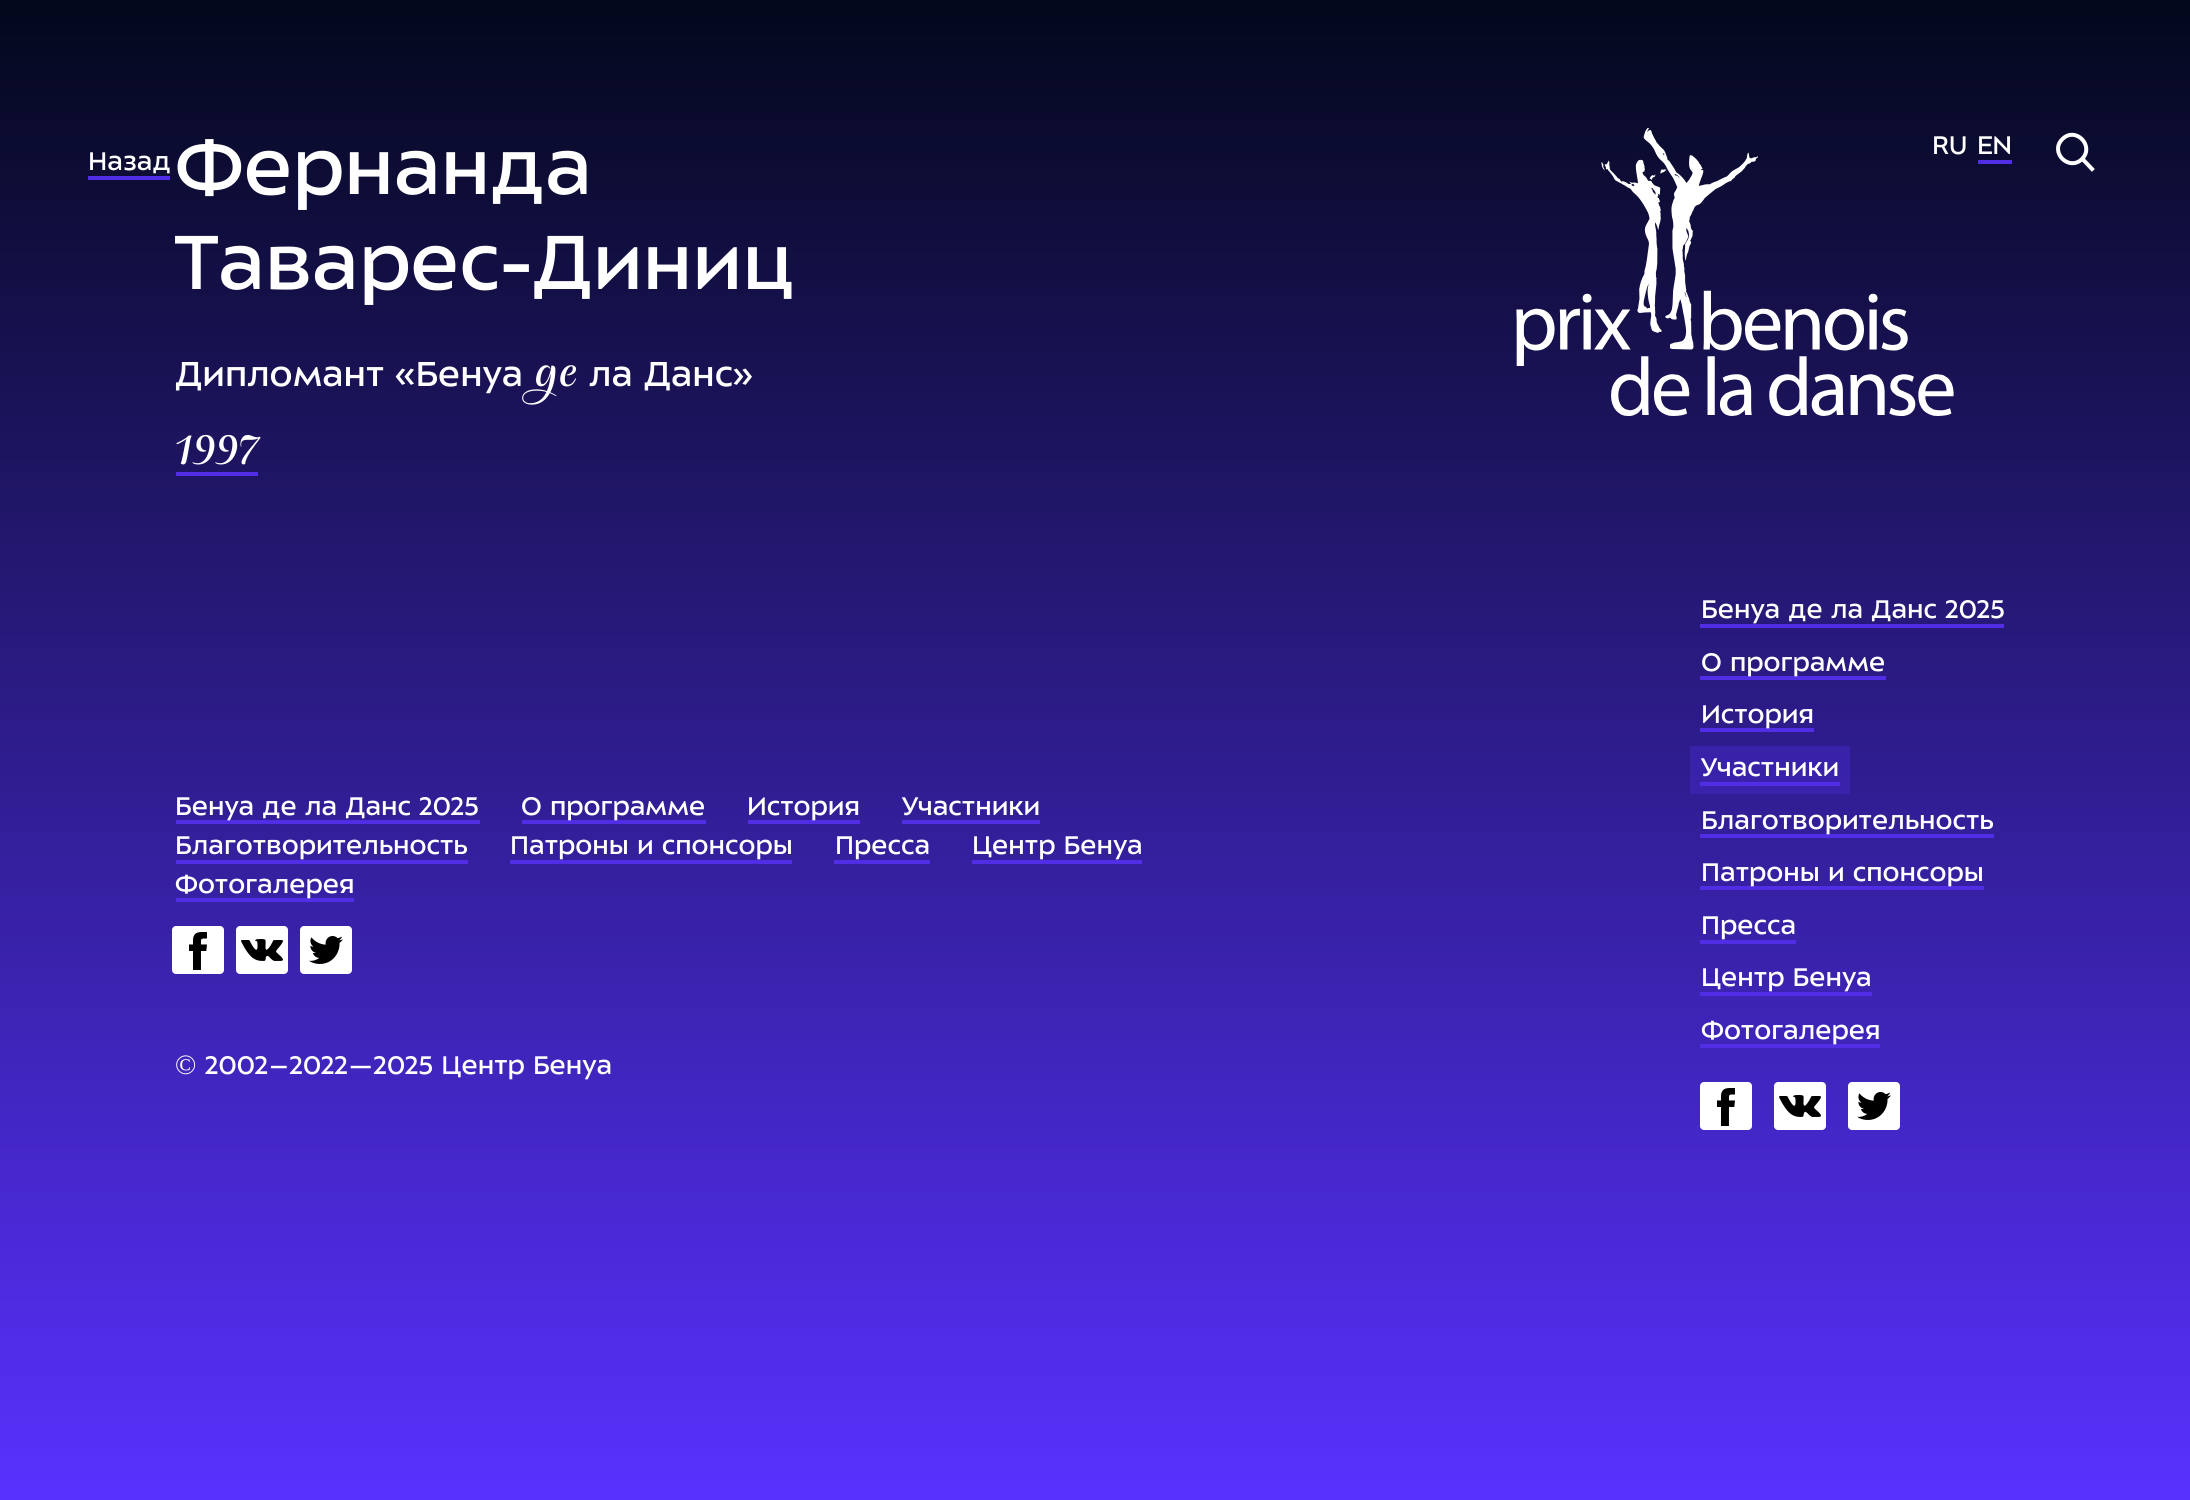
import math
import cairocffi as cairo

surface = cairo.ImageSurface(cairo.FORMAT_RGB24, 2190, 1500)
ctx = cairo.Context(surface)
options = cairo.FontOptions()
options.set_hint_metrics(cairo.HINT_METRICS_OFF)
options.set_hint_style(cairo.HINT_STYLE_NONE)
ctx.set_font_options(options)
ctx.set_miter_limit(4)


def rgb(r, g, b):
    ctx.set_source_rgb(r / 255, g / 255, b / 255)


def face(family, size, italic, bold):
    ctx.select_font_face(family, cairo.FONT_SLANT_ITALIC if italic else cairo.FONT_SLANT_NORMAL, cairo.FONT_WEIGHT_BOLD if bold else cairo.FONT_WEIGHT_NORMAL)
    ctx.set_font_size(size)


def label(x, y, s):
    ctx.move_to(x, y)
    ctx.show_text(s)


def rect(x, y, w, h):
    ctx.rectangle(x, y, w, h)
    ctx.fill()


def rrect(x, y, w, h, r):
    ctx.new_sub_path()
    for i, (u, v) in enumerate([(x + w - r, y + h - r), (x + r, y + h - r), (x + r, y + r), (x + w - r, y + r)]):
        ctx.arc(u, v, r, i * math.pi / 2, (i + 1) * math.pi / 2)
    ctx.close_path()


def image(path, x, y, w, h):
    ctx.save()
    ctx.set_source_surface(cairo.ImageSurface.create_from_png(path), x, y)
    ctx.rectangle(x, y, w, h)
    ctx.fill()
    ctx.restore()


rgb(255, 255, 255)
ctx.paint()
gradient = cairo.LinearGradient(1095, 1500, 1095, 0)
gradient.add_color_stop_rgba(0, 0.349, 0.192, 1, 1)
gradient.add_color_stop_rgba(1, 0.012, 0.031, 0.106, 1)
ctx.set_source(gradient)
rect(0, 0, 2190, 1500)
gradient = cairo.LinearGradient(1095, 1500, 1095, 0)
gradient.add_color_stop_rgba(0, 0.341, 0.188, 0.973, 1)
gradient.add_color_stop_rgba(1, 0.102, 0.075, 0.345, 1)
ctx.set_source(gradient)
rect(1690, 746, 160, 48)
image('image0.png', 1516, 128, 438, 288)
face('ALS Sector', 28, 0, 0)
rgb(255, 255, 255)
label(1932, 154, 'RU')
label(1977, 154, 'EN')
rgb(81, 45, 230)
rect(1978, 160, 34, 4)
ctx.new_path()
ctx.move_to(2062.5, 139)
ctx.curve_to(2075.5, 126, 2095, 146, 2082, 159)
ctx.curve_to(2069, 172, 2049, 152, 2062.5, 139)
ctx.close_path()
rgb(255, 255, 255)
ctx.set_line_width(4)
ctx.stroke()
ctx.new_path()
ctx.move_to(2083, 159.5)
ctx.line_to(2092, 169)
ctx.set_line_cap(cairo.LINE_CAP_SQUARE)
ctx.stroke()
label(88, 170, 'Назад')
rgb(81, 45, 230)
rect(88, 176, 82, 4)
rgb(255, 255, 255)
label(1701, 618, 'Бенуа де ла Данс 2025')
rgb(81, 45, 230)
rect(1700, 624, 304, 4)
rect(1700, 676, 186, 4)
rgb(255, 255, 255)
label(1701, 671, 'О программе')
rgb(81, 45, 230)
rect(1700, 728, 114, 4)
rgb(255, 255, 255)
label(1701, 723, 'История')
label(1701, 776, 'Участники')
rgb(81, 45, 230)
rect(1700, 782, 140, 4)
rect(1700, 834, 294, 4)
rgb(255, 255, 255)
label(1701, 829, 'Благотворительность')
rgb(81, 45, 230)
rect(1700, 886, 284, 4)
rgb(255, 255, 255)
label(1701, 881, 'Патроны и спонсоры')
label(1701, 934, 'Пресса')
rgb(81, 45, 230)
rect(1700, 940, 96, 4)
rgb(255, 255, 255)
label(1701, 986, 'Центр Бенуа')
rgb(81, 45, 230)
rect(1700, 992, 172, 4)
rect(1700, 1044, 180, 4)
rgb(255, 255, 255)
label(1701, 1039, 'Фотогалерея')
rrect(1700, 1082, 52, 48, 4)
ctx.fill()
image('image1.png', 1717, 1088, 18, 38)
rrect(1774, 1082, 52, 48, 4)
ctx.fill()
image('image2.png', 1779, 1095, 42, 22)
rrect(1848, 1082, 52, 48, 4)
ctx.fill()
image('image3.png', 1857, 1092, 34, 28)
face('ALS Sector', 84, 0, 0)
label(175, 194, 'Фернанда')
label(175, 289, 'Таварес-Диниц')
face('ALS Sector', 38, 0, 0)
label(175, 386, 'Дипломант «Бенуа')
face('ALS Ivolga', 38, 0, 0)
label(534, 386, 'де')
face('ALS Sector', 38, 0, 0)
label(589, 386, 'ла Данс»')
face('ALS Ivolga', 38, 0, 0)
label(175, 464, '1997')
rgb(81, 45, 230)
rect(176, 472, 82, 4)
rect(176, 820, 304, 4)
face('ALS Sector', 28, 0, 0)
rgb(255, 255, 255)
label(175, 815, 'Бенуа де ла Данс 2025')
rgb(81, 45, 230)
rect(522, 820, 184, 4)
rgb(255, 255, 255)
label(521, 815, 'О программе')
rgb(81, 45, 230)
rect(748, 820, 112, 4)
rgb(255, 255, 255)
label(747, 815, 'История')
label(902, 815, 'Участники')
rgb(81, 45, 230)
rect(902, 820, 138, 4)
rgb(255, 255, 255)
label(175, 854, 'Благотворительность')
rgb(81, 45, 230)
rect(176, 860, 292, 4)
rgb(255, 255, 255)
label(510, 854, 'Патроны и спонсоры')
rgb(81, 45, 230)
rect(510, 860, 282, 4)
rgb(255, 255, 255)
label(835, 854, 'Пресса')
rgb(81, 45, 230)
rect(834, 860, 96, 4)
rgb(255, 255, 255)
label(972, 854, 'Центр Бенуа')
rgb(81, 45, 230)
rect(972, 860, 170, 4)
rect(176, 898, 178, 4)
rgb(255, 255, 255)
label(175, 893, 'Фотогалерея')
rrect(172, 926, 52, 48, 4)
ctx.fill()
image('image1.png', 189, 932, 18, 38)
rrect(236, 926, 52, 48, 4)
ctx.fill()
image('image2.png', 241, 939, 42, 22)
rrect(300, 926, 52, 48, 4)
ctx.fill()
image('image3.png', 309, 936, 34, 28)
face('Liberation Serif', 28, 0, 0)
label(175, 1074, '©')
face('ALS Sector', 28, 0, 0)
label(205, 1074, '2002–2022—2025 Центр Бенуа')
surface.write_to_png('render.png')
